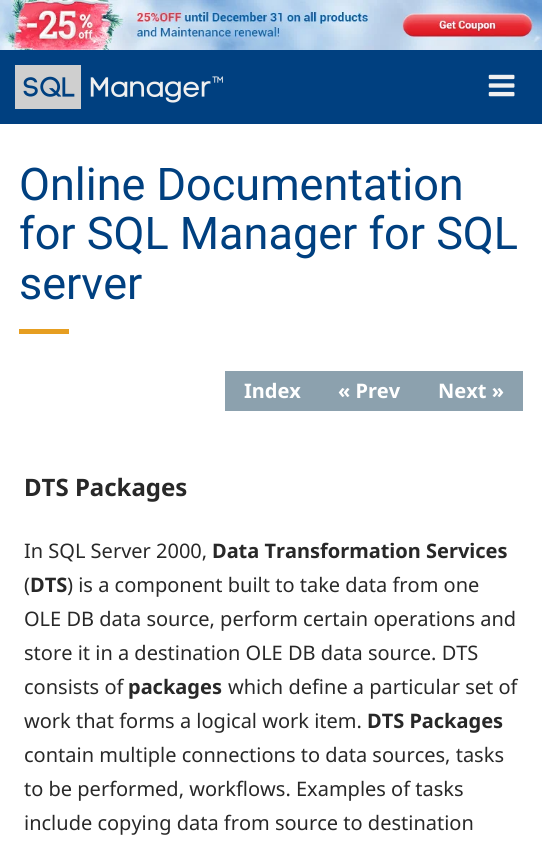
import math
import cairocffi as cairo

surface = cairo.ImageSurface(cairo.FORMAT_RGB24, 542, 859)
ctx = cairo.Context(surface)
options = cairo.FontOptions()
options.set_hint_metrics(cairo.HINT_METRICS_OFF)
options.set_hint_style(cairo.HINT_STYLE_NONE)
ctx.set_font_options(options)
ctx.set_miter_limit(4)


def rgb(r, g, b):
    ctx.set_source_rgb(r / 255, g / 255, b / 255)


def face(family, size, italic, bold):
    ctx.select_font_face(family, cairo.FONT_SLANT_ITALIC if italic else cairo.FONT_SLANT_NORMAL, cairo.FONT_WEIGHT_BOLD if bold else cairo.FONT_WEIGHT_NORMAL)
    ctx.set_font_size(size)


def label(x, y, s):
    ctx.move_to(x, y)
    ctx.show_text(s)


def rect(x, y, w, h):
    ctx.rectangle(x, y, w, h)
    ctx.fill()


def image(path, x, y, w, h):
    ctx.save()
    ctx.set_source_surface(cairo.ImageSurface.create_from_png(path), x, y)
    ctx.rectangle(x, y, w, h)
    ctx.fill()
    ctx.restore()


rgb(255, 255, 255)
ctx.paint()
image('image0.png', 0, 0, 542, 50)
rgb(0, 64, 128)
rect(0, 50, 542, 74)
image('image1.png', 15, 65, 208, 44)
image('image2.png', 488, 74, 27, 23)
face('Roboto', 45, 0, 0)
label(19, 200, 'Online Documentation')
label(19, 249, 'for SQL Manager for SQL')
label(19, 299, 'server')
rgb(230, 158, 33)
rect(19, 329, 50, 5)
rgb(140, 161, 174)
rect(225, 371, 298, 40)
face('Noto Sans', 20, 0, 1)
rgb(255, 255, 255)
label(244, 398, 'Index')
label(338, 398, '« Prev')
label(438, 398, 'Next »')
face('Noto Sans', 24, 0, 1)
rgb(40, 40, 40)
label(24, 496, 'DTS Packages')
face('Noto Sans', 20, 0, 0)
label(24, 558, 'In SQL Server 2000,')
face('Noto Sans', 20, 0, 1)
label(212, 558, 'Data Transformation Services')
face('Noto Sans', 20, 0, 0)
label(24, 592, '(')
face('Noto Sans', 20, 0, 1)
label(30, 592, 'DTS')
face('Noto Sans', 20, 0, 0)
label(67, 592, ') is a component built to take data from one')
label(24, 626, 'OLE DB data source, perform certain operations and')
label(24, 660, 'store it in a destination OLE DB data source. DTS')
label(24, 694, 'consists of')
face('Noto Sans', 20, 0, 1)
label(128, 694, 'packages')
face('Noto Sans', 20, 0, 0)
label(228, 694, 'which define a particular set of')
label(24, 728, 'work that forms a logical work item.')
face('Noto Sans', 20, 0, 1)
label(367, 728, 'DTS Packages')
face('Noto Sans', 20, 0, 0)
label(24, 762, 'contain multiple connections to data sources, tasks')
label(24, 796, 'to be performed, workflows. Examples of tasks')
label(24, 830, 'include copying data from source to destination')
surface.write_to_png('render.png')
